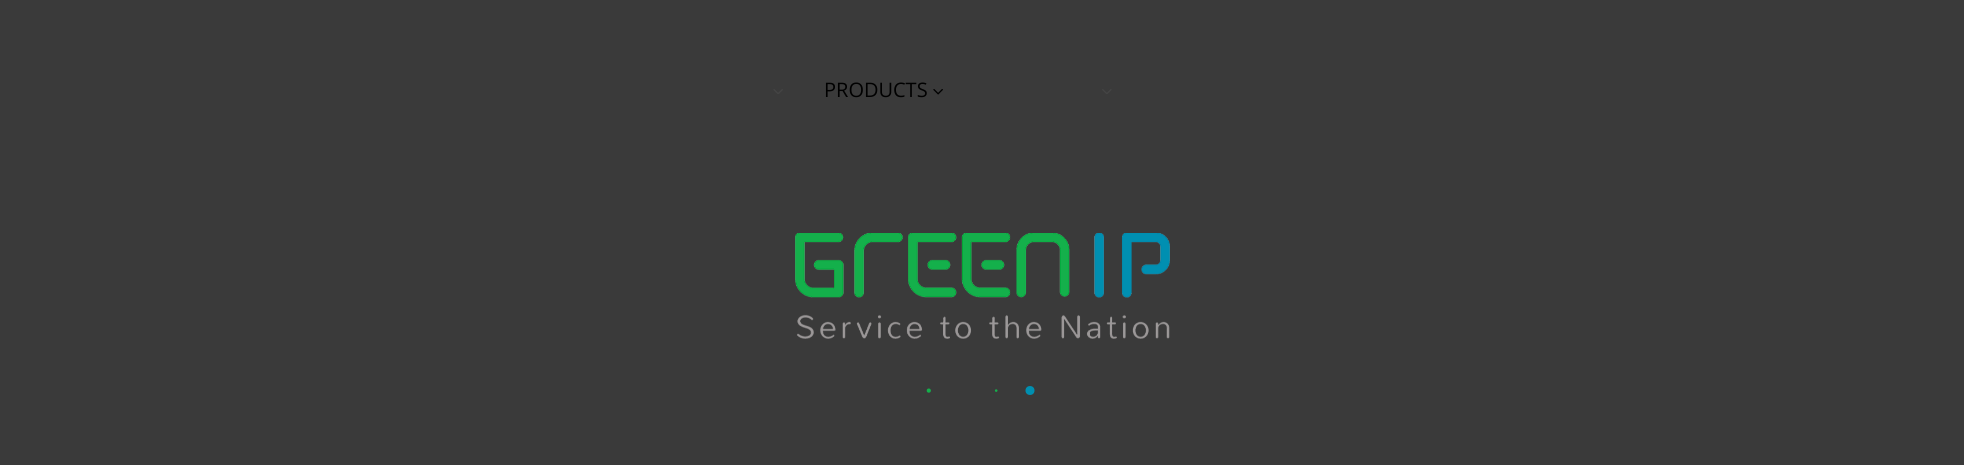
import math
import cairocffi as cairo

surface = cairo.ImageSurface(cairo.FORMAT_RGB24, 1964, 465)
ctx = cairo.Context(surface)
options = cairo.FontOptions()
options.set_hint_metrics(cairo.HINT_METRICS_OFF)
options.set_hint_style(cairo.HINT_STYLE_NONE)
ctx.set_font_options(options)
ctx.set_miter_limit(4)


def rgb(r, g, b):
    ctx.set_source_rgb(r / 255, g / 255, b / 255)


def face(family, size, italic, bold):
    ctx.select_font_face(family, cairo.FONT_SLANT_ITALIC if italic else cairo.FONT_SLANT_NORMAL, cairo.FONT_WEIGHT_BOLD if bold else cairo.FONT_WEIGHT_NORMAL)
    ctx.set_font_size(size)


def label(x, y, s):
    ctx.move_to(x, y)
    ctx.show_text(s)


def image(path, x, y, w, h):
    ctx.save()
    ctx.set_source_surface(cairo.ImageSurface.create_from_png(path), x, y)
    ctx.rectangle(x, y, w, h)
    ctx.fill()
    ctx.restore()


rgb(58, 58, 58)
ctx.paint()
image('image0.png', 773, 89, 10, 5)
face('Open Sans', 20, 0, 0)
rgb(0, 0, 0)
label(824, 97, 'PRODUCTS')
image('image1.png', 933, 89, 10, 6)
image('image2.png', 1102, 89, 10, 5)
image('image3.png', 795, 233, 375, 106)
rgb(20, 176, 75)
ctx.arc(928.8, 390.6, 2.1, 0, 2 * math.pi)
ctx.fill()
ctx.arc(996.2, 390.6, 1.3, 0, 2 * math.pi)
ctx.fill()
rgb(0, 143, 177)
ctx.arc(1030, 390.5, 4.5, 0, 2 * math.pi)
ctx.fill()
surface.write_to_png('render.png')
